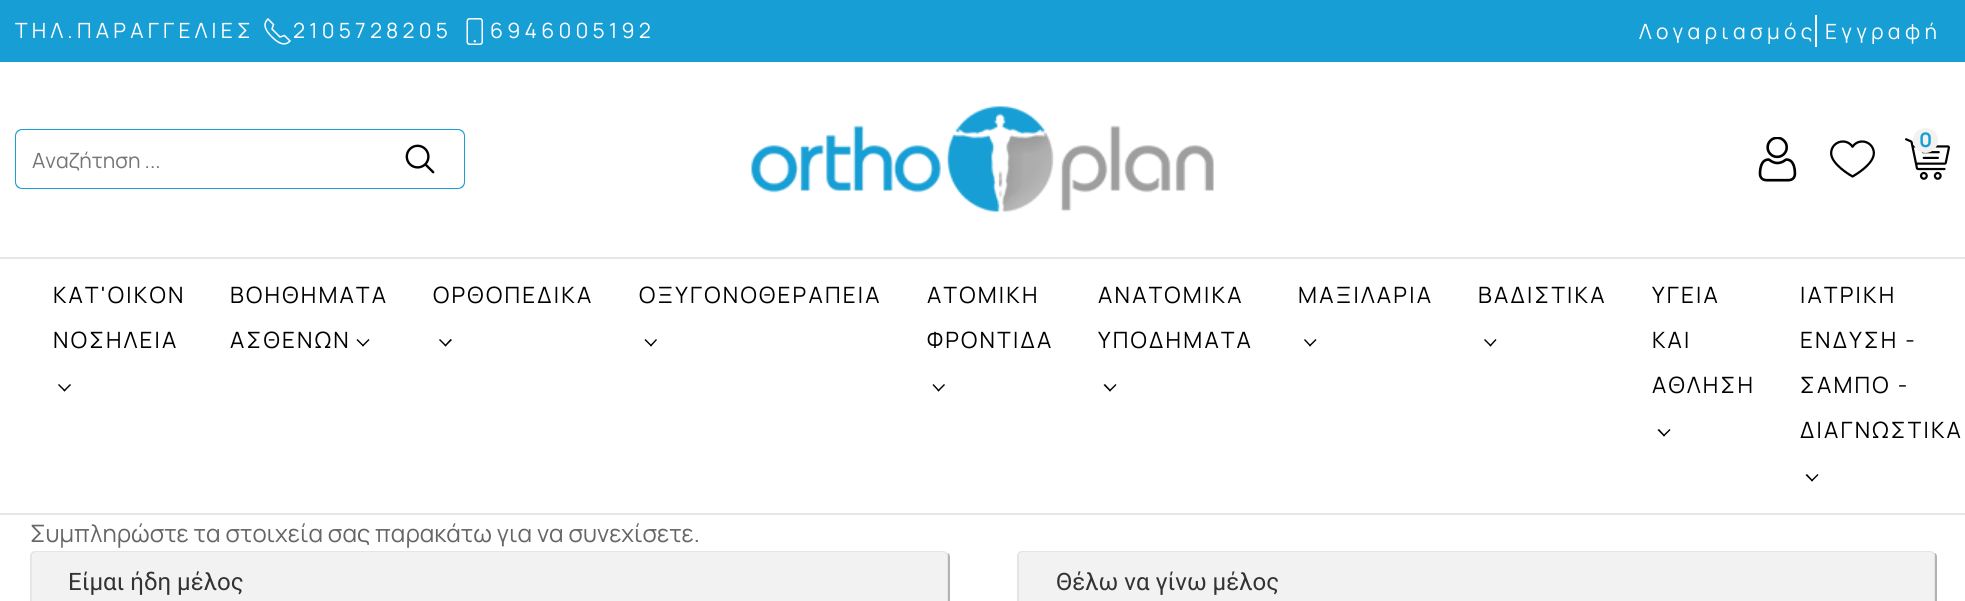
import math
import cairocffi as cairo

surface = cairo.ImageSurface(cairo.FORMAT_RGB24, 1965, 601)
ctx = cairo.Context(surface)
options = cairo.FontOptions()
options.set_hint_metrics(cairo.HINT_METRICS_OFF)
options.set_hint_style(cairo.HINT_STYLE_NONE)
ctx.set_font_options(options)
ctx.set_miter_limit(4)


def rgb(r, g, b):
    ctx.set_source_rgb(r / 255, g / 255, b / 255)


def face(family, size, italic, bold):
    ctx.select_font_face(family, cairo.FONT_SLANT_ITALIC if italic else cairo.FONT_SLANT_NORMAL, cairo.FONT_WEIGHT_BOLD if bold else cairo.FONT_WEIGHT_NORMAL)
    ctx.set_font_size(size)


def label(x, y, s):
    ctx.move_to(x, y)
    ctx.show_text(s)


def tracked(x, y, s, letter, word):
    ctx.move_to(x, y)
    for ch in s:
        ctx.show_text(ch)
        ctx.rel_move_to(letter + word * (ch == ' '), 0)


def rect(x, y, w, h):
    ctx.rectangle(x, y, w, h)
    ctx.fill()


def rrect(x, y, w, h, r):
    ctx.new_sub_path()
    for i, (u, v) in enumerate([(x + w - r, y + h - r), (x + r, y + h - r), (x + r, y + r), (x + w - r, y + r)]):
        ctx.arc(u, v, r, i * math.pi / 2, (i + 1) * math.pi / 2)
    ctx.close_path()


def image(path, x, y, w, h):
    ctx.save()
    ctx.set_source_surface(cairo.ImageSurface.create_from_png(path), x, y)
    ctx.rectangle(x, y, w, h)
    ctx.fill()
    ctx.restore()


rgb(255, 255, 255)
ctx.paint()
rgb(22, 158, 213)
rect(0, 0, 1965, 62)
face('Manrope', 21, 0, 0)
rgb(255, 255, 255)
tracked(15, 38, 'ΤΗΛ.ΠΑΡΑΓΓΕΛΙΕΣ', 4.25, 0)
ctx.new_path()
ctx.move_to(272, 37)
ctx.curve_to(276.5, 41.5, 284, 47.5, 290, 41)
ctx.line_to(284.5, 35.5)
ctx.line_to(280, 37)
ctx.line_to(272, 29)
ctx.line_to(273.5, 24.5)
ctx.line_to(268, 19)
ctx.curve_to(261.5, 25, 267, 32, 272, 37)
ctx.set_line_width(1.5)
ctx.stroke()
tracked(293, 38, '2105728205', 4.25, 0)
image('image0.png', 466, 18, 17, 27)
tracked(490, 38, '6946005192', 4.25, 0)
rect(1815, 15, 2, 32)
tracked(1639, 39, 'Λογαριασμός', 4.25, 0)
tracked(1825, 39, 'Εγγραφή', 4.25, 0)
image('image1.png', 751, 106, 463, 106)
image('image2.png', 1758, 137, 39, 45)
image('image3.png', 1830, 140, 45, 38)
image('image4.png', 1905, 138, 45, 42)
rgb(243, 242, 240)
ctx.arc(1925.5, 140.5, 12.5, 0, 2 * math.pi)
ctx.fill()
face('Manrope', 20, 0, 1)
rgb(22, 158, 213)
label(1919, 147, '0')
ctx.set_fill_rule(cairo.FILL_RULE_EVEN_ODD)
ctx.new_path()
ctx.move_to(22, 129)
ctx.line_to(375, 129)
ctx.line_to(375, 189)
ctx.line_to(22, 189)
ctx.curve_to(18, 189, 15, 186, 15, 182)
ctx.line_to(15, 136)
ctx.curve_to(15, 132, 18, 129, 22, 129)
ctx.close_path()
ctx.move_to(22, 130)
ctx.line_to(375, 130)
ctx.line_to(375, 188)
ctx.line_to(22, 188)
ctx.curve_to(19, 188, 16, 185, 16, 182)
ctx.line_to(16, 136)
ctx.curve_to(16, 133, 19, 130, 22, 130)
ctx.close_path()
ctx.fill()
face('Manrope', 21, 0, 0)
rgb(117, 117, 117)
label(32, 168, 'Αναζήτηση ...')
image('image5.png', 405, 144, 30, 30)
rgb(22, 158, 213)
ctx.new_path()
ctx.move_to(375, 129)
ctx.line_to(458, 129)
ctx.curve_to(462, 129, 465, 132, 465, 136)
ctx.line_to(465, 182)
ctx.curve_to(465, 186, 462, 189, 458, 189)
ctx.line_to(375, 189)
ctx.close_path()
ctx.move_to(375, 130)
ctx.line_to(458, 130)
ctx.curve_to(461, 130, 464, 133, 464, 136)
ctx.line_to(464, 182)
ctx.curve_to(464, 185, 461, 188, 458, 188)
ctx.line_to(375, 188)
ctx.close_path()
ctx.fill()
rgb(230, 230, 230)
rect(0, 257, 1965, 2)
rect(0, 513, 1965, 2)
face('Manrope', 22.5, 0, 0)
rgb(0, 0, 0)
tracked(53, 303, 'ΚΑΤ\'ΟΙΚΟΝ', 2.25, 0)
tracked(53, 348, 'ΝΟΣΗΛΕΙΑ', 2.25, 0)
ctx.set_fill_rule(cairo.FILL_RULE_WINDING)
ctx.new_path()
ctx.move_to(70, 384)
ctx.line_to(71, 385)
ctx.line_to(64.5, 391.5)
ctx.line_to(63.5, 390.5)
ctx.close_path()
ctx.fill()
ctx.new_path()
ctx.move_to(59, 384)
ctx.line_to(65.5, 390.5)
ctx.line_to(64.5, 391.5)
ctx.line_to(58, 385)
ctx.close_path()
ctx.fill()
tracked(230, 303, 'ΒΟΗΘΗΜΑΤΑ', 2.25, 0)
tracked(230, 348, 'ΑΣΘΕΝΩΝ', 2.25, 0)
ctx.new_path()
ctx.move_to(368.5, 339)
ctx.line_to(369.5, 340)
ctx.line_to(363, 346.5)
ctx.line_to(362, 345.5)
ctx.close_path()
ctx.fill()
ctx.new_path()
ctx.move_to(357.5, 339)
ctx.line_to(364, 345.5)
ctx.line_to(363, 346.5)
ctx.line_to(356.5, 340)
ctx.close_path()
ctx.fill()
tracked(433, 303, 'ΟΡΘΟΠΕΔΙΚΑ', 2.25, 0)
ctx.new_path()
ctx.move_to(450.5, 339)
ctx.line_to(452, 340)
ctx.line_to(445.5, 346.5)
ctx.line_to(444.5, 345.5)
ctx.close_path()
ctx.fill()
ctx.new_path()
ctx.move_to(440, 339)
ctx.line_to(446.5, 345.5)
ctx.line_to(445.5, 346.5)
ctx.line_to(439, 340)
ctx.close_path()
ctx.fill()
tracked(639, 303, 'ΟΞΥΓΟΝΟΘΕΡΑΠΕΙΑ', 2.25, 0)
ctx.new_path()
ctx.move_to(656, 339)
ctx.line_to(657, 340)
ctx.line_to(651, 346.5)
ctx.line_to(650, 345.5)
ctx.close_path()
ctx.fill()
ctx.new_path()
ctx.move_to(645.5, 339)
ctx.line_to(652, 345.5)
ctx.line_to(651, 346.5)
ctx.line_to(644.5, 340)
ctx.close_path()
ctx.fill()
tracked(927, 303, 'ΑΤΟΜΙΚΗ', 2.25, 0)
tracked(927, 348, 'ΦΡΟΝΤΙΔΑ', 2.25, 0)
ctx.new_path()
ctx.move_to(944, 384)
ctx.line_to(945, 385)
ctx.line_to(938.5, 391.5)
ctx.line_to(937.5, 390.5)
ctx.close_path()
ctx.fill()
ctx.new_path()
ctx.move_to(933.5, 384)
ctx.line_to(939.5, 390.5)
ctx.line_to(938.5, 391.5)
ctx.line_to(932.5, 385)
ctx.close_path()
ctx.fill()
tracked(1098, 303, 'ΑΝΑΤΟΜΙΚΑ', 2.25, 0)
tracked(1098, 348, 'ΥΠΟΔΗΜΑΤΑ', 2.25, 0)
ctx.new_path()
ctx.move_to(1115.5, 384)
ctx.line_to(1116.5, 385)
ctx.line_to(1110, 391.5)
ctx.line_to(1109, 390.5)
ctx.close_path()
ctx.fill()
ctx.new_path()
ctx.move_to(1105, 384)
ctx.line_to(1111, 390.5)
ctx.line_to(1110, 391.5)
ctx.line_to(1103.5, 385)
ctx.close_path()
ctx.fill()
tracked(1298, 303, 'ΜΑΞΙΛΑΡΙΑ', 2.25, 0)
ctx.new_path()
ctx.move_to(1315.5, 339)
ctx.line_to(1316.5, 340)
ctx.line_to(1310, 346.5)
ctx.line_to(1309, 345.5)
ctx.close_path()
ctx.fill()
ctx.new_path()
ctx.move_to(1305, 339)
ctx.line_to(1311, 345.5)
ctx.line_to(1310, 346.5)
ctx.line_to(1304, 340)
ctx.close_path()
ctx.fill()
tracked(1478, 303, 'ΒΑΔΙΣΤΙΚΑ', 2.25, 0)
ctx.new_path()
ctx.move_to(1495.5, 339)
ctx.line_to(1496.5, 340)
ctx.line_to(1490.5, 346.5)
ctx.line_to(1489.5, 345.5)
ctx.close_path()
ctx.fill()
ctx.new_path()
ctx.move_to(1485, 339)
ctx.line_to(1491.5, 345.5)
ctx.line_to(1490.5, 346.5)
ctx.line_to(1484, 340)
ctx.close_path()
ctx.fill()
tracked(1652, 303, 'ΥΓΕΙΑ', 2.25, 0)
tracked(1652, 348, 'ΚΑΙ', 2.25, 0)
tracked(1652, 393, 'ΑΘΛΗΣΗ', 2.25, 0)
ctx.new_path()
ctx.move_to(1669.5, 429)
ctx.line_to(1670.5, 430)
ctx.line_to(1664, 436.5)
ctx.line_to(1663, 435.5)
ctx.close_path()
ctx.fill()
ctx.new_path()
ctx.move_to(1659, 429)
ctx.line_to(1665, 435.5)
ctx.line_to(1664, 436.5)
ctx.line_to(1657.5, 430)
ctx.close_path()
ctx.fill()
tracked(1800, 303, 'ΙΑΤΡΙΚΗ', 2.25, 0)
tracked(1800, 348, 'ΕΝΔΥΣΗ -', 2.25, 0)
tracked(1800, 393, 'ΣΑΜΠΟ -', 2.25, 0)
tracked(1800, 438, 'ΔΙΑΓΝΩΣΤΙΚΑ', 2.25, 0)
ctx.new_path()
ctx.move_to(1817.5, 474)
ctx.line_to(1818.5, 475)
ctx.line_to(1812, 481.5)
ctx.line_to(1811, 480.5)
ctx.close_path()
ctx.fill()
ctx.new_path()
ctx.move_to(1807, 474)
ctx.line_to(1813, 480.5)
ctx.line_to(1812, 481.5)
ctx.line_to(1805.5, 475)
ctx.close_path()
ctx.fill()
face('Manrope', 24, 0, 0)
rgb(102, 102, 102)
label(30, 542, 'Συμπληρώστε τα στοιχεία σας παρακάτω για να συνεχίσετε.')
rgb(179, 179, 179)
ctx.new_path()
ctx.move_to(33, 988)
ctx.curve_to(34, 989, 36, 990, 37, 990)
ctx.line_to(945, 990)
ctx.curve_to(948, 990, 950, 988, 950, 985)
ctx.line_to(950, 557)
ctx.curve_to(950, 555, 949, 553, 947, 553)
ctx.line_to(948, 555)
ctx.line_to(948, 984)
ctx.curve_to(948, 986, 946, 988, 944, 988)
ctx.close_path()
ctx.fill()
rrect(31, 552, 916, 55, 4)
rgb(229, 229, 229)
ctx.set_line_width(2)
ctx.stroke()
rgb(242, 242, 242)
ctx.new_path()
ctx.move_to(37, 552)
ctx.line_to(942, 552)
ctx.curve_to(945, 552, 947, 554, 947, 557)
ctx.line_to(947, 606)
ctx.line_to(32, 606)
ctx.line_to(32, 557)
ctx.curve_to(32, 554, 34, 552, 37, 552)
ctx.close_path()
ctx.fill()
face('Roboto', 24, 0, 0)
rgb(51, 51, 51)
label(68, 590, 'Είμαι ήδη μέλος')
rgb(179, 179, 179)
ctx.new_path()
ctx.move_to(1020, 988)
ctx.curve_to(1021, 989, 1023, 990, 1024, 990)
ctx.line_to(1932, 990)
ctx.curve_to(1935, 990, 1937, 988, 1937, 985)
ctx.line_to(1937, 557)
ctx.curve_to(1937, 555, 1936, 553, 1934, 553)
ctx.line_to(1935, 555)
ctx.line_to(1935, 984)
ctx.curve_to(1935, 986, 1933, 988, 1930, 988)
ctx.close_path()
ctx.fill()
rrect(1018, 552, 916, 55, 4)
rgb(229, 229, 229)
ctx.stroke()
rgb(242, 242, 242)
ctx.new_path()
ctx.move_to(1024, 552)
ctx.line_to(1929, 552)
ctx.curve_to(1932, 552, 1934, 554, 1934, 557)
ctx.line_to(1934, 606)
ctx.line_to(1019, 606)
ctx.line_to(1019, 557)
ctx.curve_to(1019, 554, 1021, 552, 1024, 552)
ctx.close_path()
ctx.fill()
rgb(51, 51, 51)
label(1056, 590, 'Θέλω να γίνω μέλος')
surface.write_to_png('render.png')
